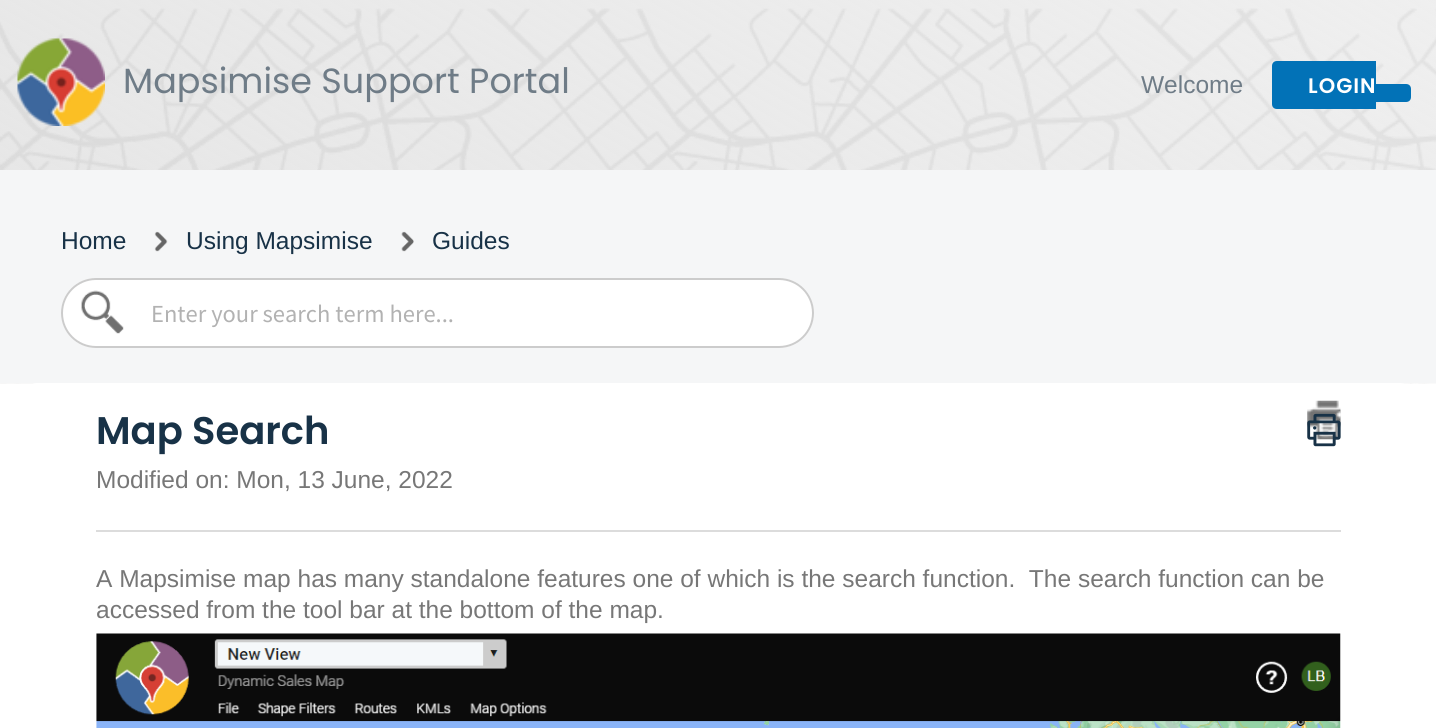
import math
import cairocffi as cairo

surface = cairo.ImageSurface(cairo.FORMAT_RGB24, 1436, 728)
ctx = cairo.Context(surface)
options = cairo.FontOptions()
options.set_hint_metrics(cairo.HINT_METRICS_OFF)
options.set_hint_style(cairo.HINT_STYLE_NONE)
ctx.set_font_options(options)
ctx.set_miter_limit(4)


def rgb(r, g, b):
    ctx.set_source_rgb(r / 255, g / 255, b / 255)


def face(family, size, italic, bold):
    ctx.select_font_face(family, cairo.FONT_SLANT_ITALIC if italic else cairo.FONT_SLANT_NORMAL, cairo.FONT_WEIGHT_BOLD if bold else cairo.FONT_WEIGHT_NORMAL)
    ctx.set_font_size(size)


def label(x, y, s):
    ctx.move_to(x, y)
    ctx.show_text(s)


def tracked(x, y, s, letter, word):
    ctx.move_to(x, y)
    for ch in s:
        ctx.show_text(ch)
        ctx.rel_move_to(letter + word * (ch == ' '), 0)


def rect(x, y, w, h):
    ctx.rectangle(x, y, w, h)
    ctx.fill()


def rrect(x, y, w, h, r):
    ctx.new_sub_path()
    for i, (u, v) in enumerate([(x + w - r, y + h - r), (x + r, y + h - r), (x + r, y + r), (x + w - r, y + r)]):
        ctx.arc(u, v, r, i * math.pi / 2, (i + 1) * math.pi / 2)
    ctx.close_path()


def image(path, x, y, w, h):
    ctx.save()
    ctx.set_source_surface(cairo.ImageSurface.create_from_png(path), x, y)
    ctx.rectangle(x, y, w, h)
    ctx.fill()
    ctx.restore()


rgb(255, 255, 255)
ctx.paint()
image('image0.png', 0, 0, 1436, 384)
image('image1.png', 17, 38, 88, 88)
face('Poppins', 35, 0, 0)
rgb(111, 124, 135)
label(123, 93, 'Mapsimise Support Portal')
face('Liberation Sans', 24.5, 0, 0)
label(1141, 93, 'Welcome')
rgb(2, 114, 183)
ctx.new_path()
ctx.move_to(1277, 61)
ctx.line_to(1376, 61)
ctx.line_to(1376, 109)
ctx.line_to(1277, 109)
ctx.curve_to(1274, 109, 1272, 107, 1272, 104)
ctx.line_to(1272, 66)
ctx.curve_to(1272, 63, 1274, 61, 1277, 61)
ctx.close_path()
ctx.fill()
face('Poppins SemiBold', 21, 0, 0)
rgb(255, 255, 255)
tracked(1308, 93, 'LOGIN', 1, 0)
rgb(2, 114, 183)
ctx.new_path()
ctx.move_to(1376, 84)
ctx.line_to(1406, 84)
ctx.curve_to(1409, 84, 1411, 86, 1411, 89)
ctx.line_to(1411, 97)
ctx.curve_to(1411, 100, 1409, 102, 1406, 102)
ctx.line_to(1376, 102)
ctx.close_path()
ctx.fill()
rgb(245, 246, 247)
rect(0, 170, 1436, 213)
image('image2.png', 154, 231, 14, 21)
face('Liberation Sans', 24.5, 0, 0)
rgb(24, 50, 71)
label(61, 249, 'Home')
image('image3.png', 401, 231, 13, 21)
label(186, 249, 'Using Mapsimise')
label(432, 249, 'Guides')
rgb(255, 255, 255)
rrect(61, 278, 753, 70, 35)
ctx.fill()
image('image4.png', 81, 290, 43, 44)
rrect(62, 279, 751, 68, 34)
rgb(204, 204, 204)
ctx.stroke()
face('Source Sans Pro', 24.5, 0, 0)
rgb(178, 178, 178)
label(151, 322, 'Enter your search term here...')
rgb(255, 255, 255)
rrect(26, 383, 1385, 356, 11)
ctx.fill()
face('Poppins SemiBold', 38.5, 0, 0)
rgb(24, 50, 71)
label(96, 444, 'Map Search')
image('image5.png', 1307, 400, 34, 40)
image('image6.png', 1307, 413, 34, 34)
face('Liberation Sans', 24.5, 0, 0)
rgb(119, 119, 119)
label(96, 488, 'Modified on: Mon, 13 June, 2022')
rgb(220, 220, 220)
rect(96, 530, 1245, 2)
rgb(119, 119, 119)
label(96, 587, 'A Mapsimise map has many standalone features one of which is the search function.  The search function can be')
label(96, 618, 'accessed from the tool bar at the bottom of the map.')
image('image7.png', 96, 633, 1245, 95)
surface.write_to_png('render.png')
